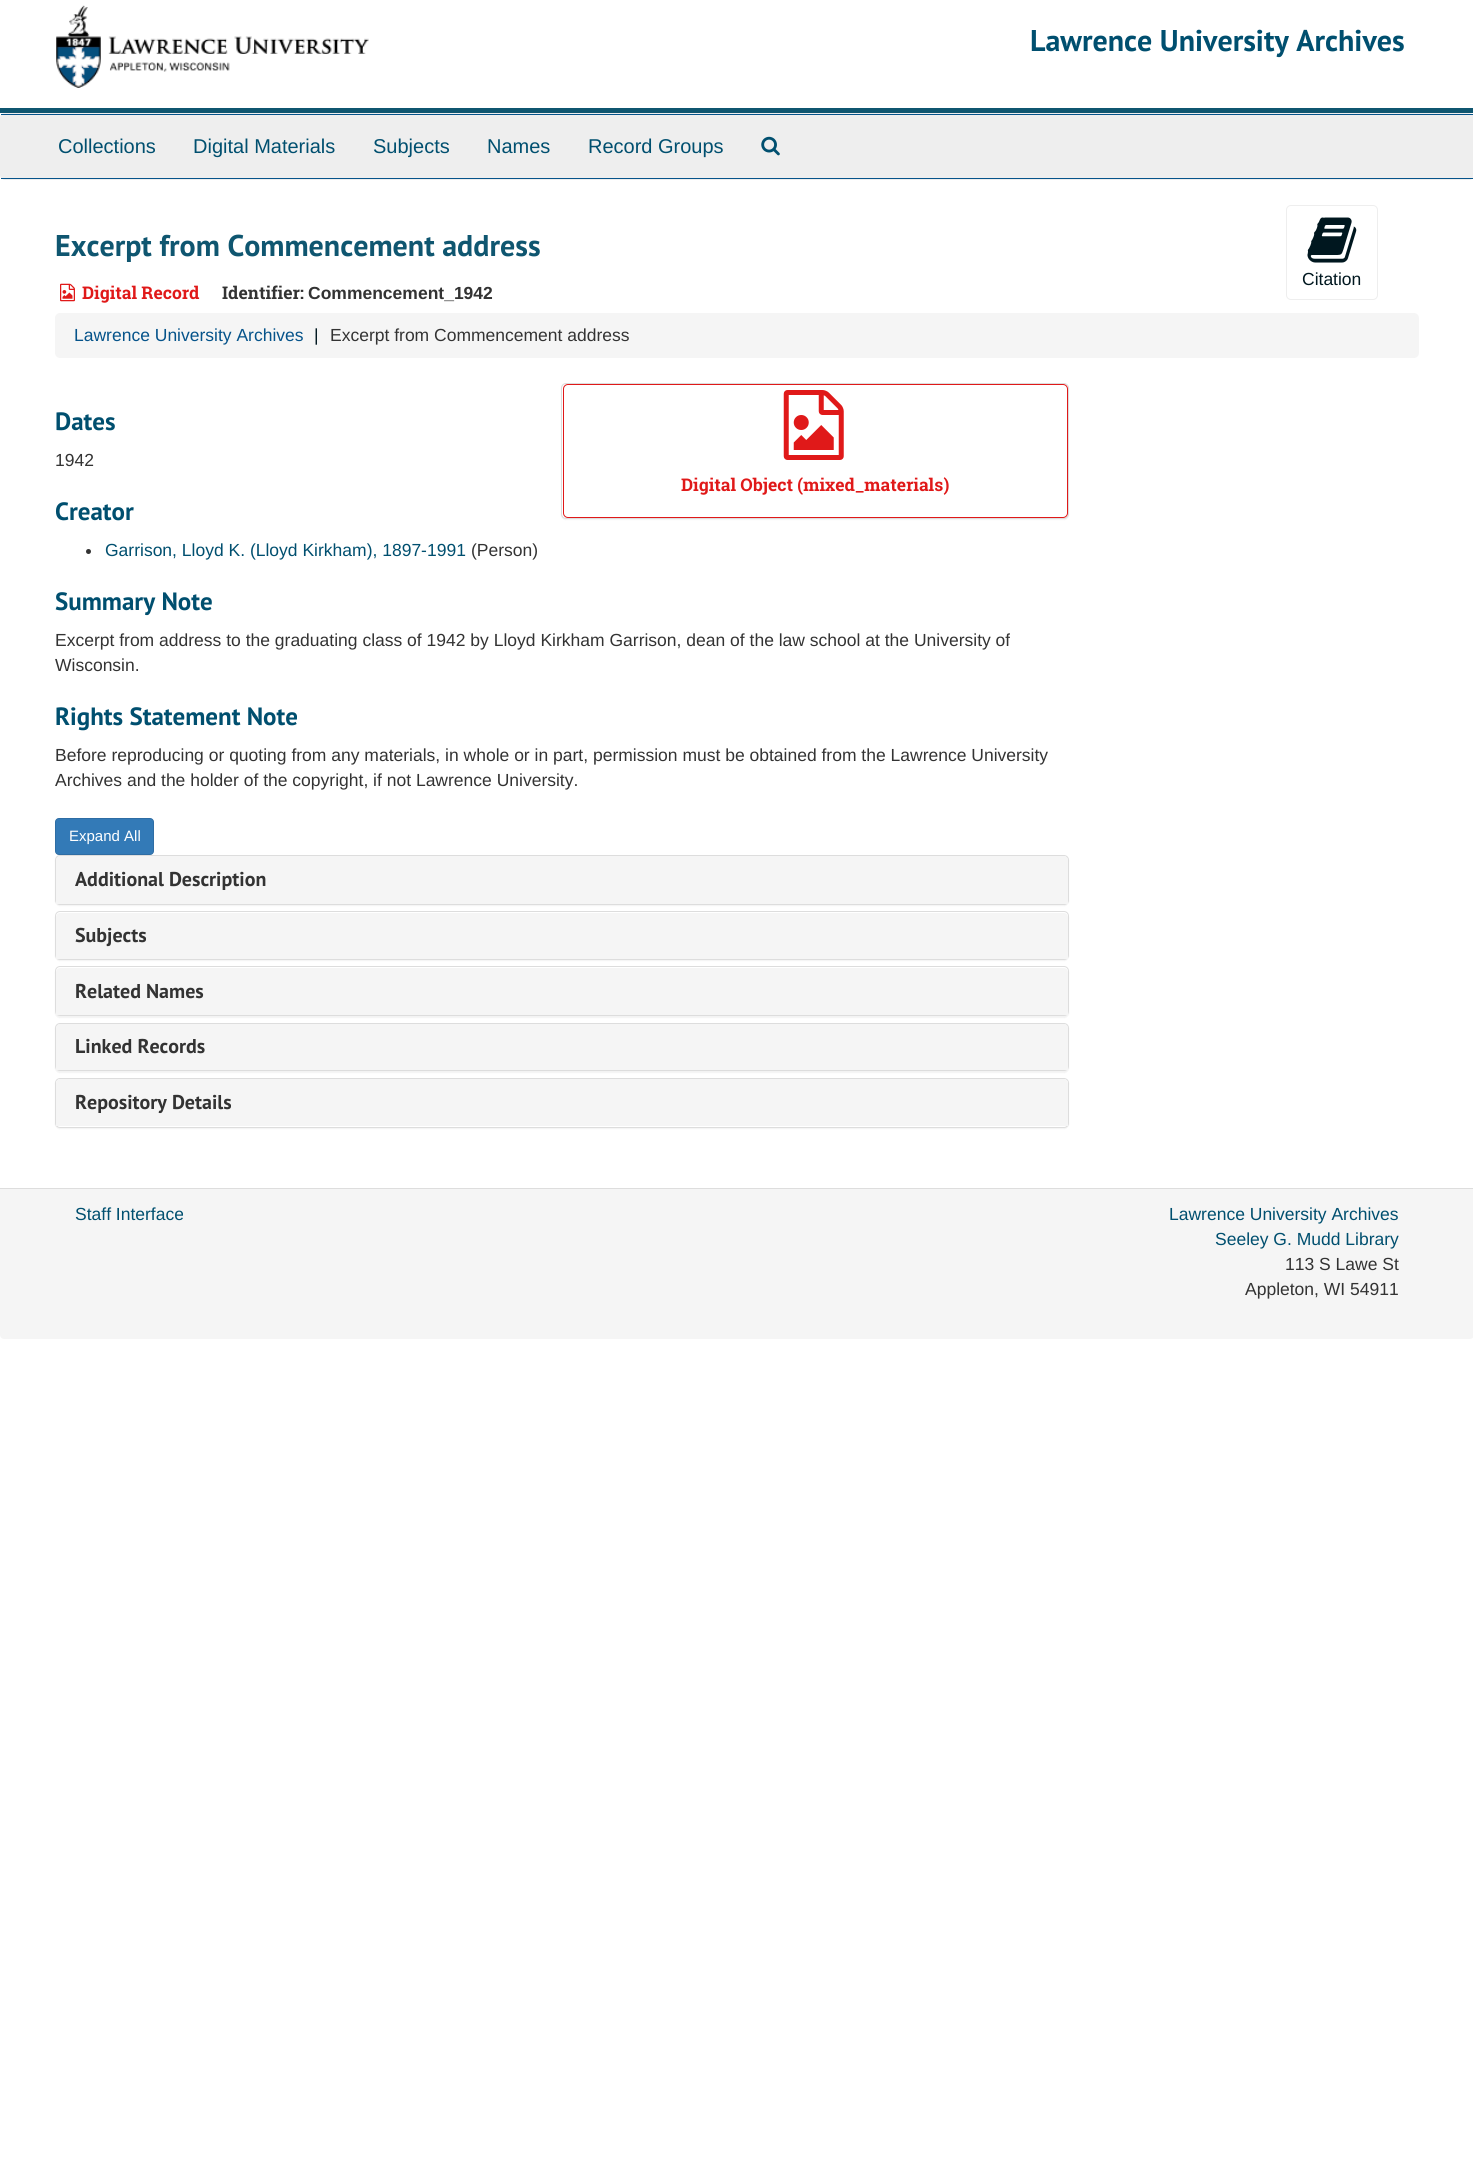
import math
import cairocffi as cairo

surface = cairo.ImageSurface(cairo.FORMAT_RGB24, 1473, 2163)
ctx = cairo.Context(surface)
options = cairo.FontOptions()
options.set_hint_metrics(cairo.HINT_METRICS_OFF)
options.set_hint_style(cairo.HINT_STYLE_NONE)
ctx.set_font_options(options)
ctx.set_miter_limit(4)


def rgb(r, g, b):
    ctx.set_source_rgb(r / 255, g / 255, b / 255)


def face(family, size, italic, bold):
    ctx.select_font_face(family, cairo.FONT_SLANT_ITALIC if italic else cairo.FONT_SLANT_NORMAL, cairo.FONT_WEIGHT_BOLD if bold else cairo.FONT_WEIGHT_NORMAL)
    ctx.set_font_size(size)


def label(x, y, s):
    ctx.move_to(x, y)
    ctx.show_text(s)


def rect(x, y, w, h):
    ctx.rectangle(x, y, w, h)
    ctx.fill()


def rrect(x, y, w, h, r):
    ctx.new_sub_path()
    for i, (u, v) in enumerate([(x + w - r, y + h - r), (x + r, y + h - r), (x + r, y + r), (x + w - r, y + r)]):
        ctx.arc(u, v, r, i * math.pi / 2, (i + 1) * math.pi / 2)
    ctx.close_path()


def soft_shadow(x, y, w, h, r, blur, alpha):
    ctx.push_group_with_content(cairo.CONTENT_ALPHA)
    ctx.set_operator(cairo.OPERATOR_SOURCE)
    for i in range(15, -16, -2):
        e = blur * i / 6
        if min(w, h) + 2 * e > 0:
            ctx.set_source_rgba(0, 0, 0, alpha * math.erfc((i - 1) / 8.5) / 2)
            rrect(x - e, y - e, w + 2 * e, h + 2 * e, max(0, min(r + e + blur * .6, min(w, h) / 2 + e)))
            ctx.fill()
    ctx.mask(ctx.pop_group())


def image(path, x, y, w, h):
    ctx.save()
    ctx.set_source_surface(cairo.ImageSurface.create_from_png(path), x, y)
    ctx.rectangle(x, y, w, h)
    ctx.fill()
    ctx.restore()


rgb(255, 255, 255)
ctx.paint()
rgb(15, 86, 112)
rect(0, 108, 1473, 5)
image('image0.png', 56, 5, 313, 83)
face('PT Sans', 30, 0, 1)
rgb(0, 79, 111)
label(1030, 51, 'Lawrence University Archives')
rrect(0.5, 113.5, 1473, 66, 4.5)
rgb(238, 238, 238)
ctx.set_line_width(1)
ctx.stroke()
rect(1, 115, 1472, 63)
rgb(5, 83, 138)
rect(1, 114, 1472, 1)
rect(1, 178, 1472, 1)
face('Liberation Sans', 20, 0, 0)
rgb(0, 79, 111)
label(58, 153, 'Collections')
label(193, 153, 'Digital Materials')
label(373, 153, 'Subjects')
label(487, 153, 'Names')
label(588, 153, 'Record Groups')
image('image1.png', 761, 136, 19, 20)
face('PT Sans', 30, 0, 1)
rgb(15, 86, 112)
label(55, 256, 'Excerpt from Commencement address')
image('image2.png', 60, 283, 15, 19)
face('Roboto Slab', 17.5, 0, 1)
rgb(224, 25, 25)
label(82, 299, 'Digital Record')
rgb(51, 51, 51)
label(222, 299, 'Identifier:')
face('Liberation Sans', 17.5, 0, 1)
label(308, 299, 'Commencement_1942')
rrect(1286.5, 205.5, 91, 94, 4.5)
rgb(238, 238, 238)
ctx.stroke()
image('image3.png', 1307, 217, 50, 46)
face('Liberation Sans', 17.5, 0, 0)
rgb(0, 23, 31)
label(1302, 285, 'Citation')
rgb(245, 245, 245)
rrect(55, 313, 1364, 45, 5)
ctx.fill()
rgb(5, 83, 138)
label(74, 341, 'Lawrence University Archives')
rgb(0, 23, 31)
label(314, 341, '|')
rgb(51, 51, 51)
label(330, 341, 'Excerpt from Commencement address')
face('PT Sans', 25, 0, 1)
rgb(0, 79, 111)
label(55, 430, 'Dates')
face('Liberation Sans', 17.5, 0, 0)
rgb(51, 51, 51)
label(55, 466, '1942')
face('PT Sans', 25, 0, 1)
rgb(0, 79, 111)
label(55, 520, 'Creator')
rgb(51, 51, 51)
ctx.new_path()
ctx.arc(88.5, 551.5, 2.5, 0, 2 * math.pi)
ctx.fill()
face('Liberation Sans', 17.5, 0, 0)
rgb(0, 79, 111)
label(105, 556, 'Garrison, Lloyd K. (Lloyd Kirkham), 1897-1991')
rgb(51, 51, 51)
label(471, 556, '(Person)')
face('PT Sans', 25, 0, 1)
rgb(0, 79, 111)
label(55, 610, 'Summary Note')
face('Liberation Sans', 17.5, 0, 0)
rgb(51, 51, 51)
label(55, 646, 'Excerpt from address to the graduating class of 1942 by Lloyd Kirkham Garrison, dean of the law school at the University of')
label(55, 671, 'Wisconsin.')
face('PT Sans', 25, 0, 1)
rgb(0, 79, 111)
label(55, 725, 'Rights Statement Note')
face('Liberation Sans', 17.5, 0, 0)
rgb(51, 51, 51)
label(55, 761, 'Before reproducing or quoting from any materials, in whole or in part, permission must be obtained from the Lawrence University')
label(55, 786, 'Archives and the holder of the copyright, if not Lawrence University.')
rgb(0, 0, 0)
soft_shadow(561, 384, 508, 136, 5, 0.5, 0.05)
rgb(255, 255, 255)
rrect(561.5, 383.5, 507, 135, 4.5)
ctx.fill_preserve()
rgb(221, 221, 221)
ctx.stroke()
rgb(255, 255, 255)
rrect(563.5, 384.5, 504, 133, 4.5)
ctx.fill_preserve()
rgb(224, 25, 25)
ctx.stroke()
image('image4.png', 783, 390, 61, 70)
face('Roboto Slab', 17.5, 0, 1)
label(681, 491, 'Digital Object (mixed_materials)')
rgb(0, 0, 0)
soft_shadow(55, 856, 1014, 50, 5, 0.5, 0.05)
rgb(51, 122, 183)
rrect(55.5, 818.5, 98, 36, 3.5)
ctx.fill_preserve()
rgb(46, 109, 164)
ctx.stroke()
face('Liberation Sans', 15, 0, 0)
rgb(255, 255, 255)
label(69, 841, 'Expand All')
rrect(55.5, 855.5, 1013, 49, 4.5)
rgb(221, 221, 221)
ctx.stroke()
rgb(245, 245, 245)
ctx.new_path()
ctx.move_to(60, 856)
ctx.line_to(1064, 856)
ctx.curve_to(1066, 856, 1068, 858, 1068, 860)
ctx.line_to(1068, 904)
ctx.line_to(56, 904)
ctx.line_to(56, 860)
ctx.curve_to(56, 858, 58, 856, 60, 856)
ctx.close_path()
ctx.fill()
face('PT Sans', 20, 0, 1)
rgb(51, 51, 51)
label(75, 886, 'Additional Description')
rgb(0, 0, 0)
soft_shadow(55, 913, 1014, 48, 5, 0.5, 0.05)
rgb(255, 255, 255)
rrect(55.5, 911.5, 1013, 48, 4.5)
ctx.fill_preserve()
rgb(221, 221, 221)
ctx.stroke()
rgb(245, 245, 245)
ctx.new_path()
ctx.move_to(60, 913)
ctx.line_to(1064, 913)
ctx.curve_to(1066, 913, 1068, 915, 1068, 917)
ctx.line_to(1068, 959)
ctx.line_to(56, 959)
ctx.line_to(56, 917)
ctx.curve_to(56, 915, 58, 913, 60, 913)
ctx.close_path()
ctx.fill()
rgb(51, 51, 51)
label(75, 942, 'Subjects')
rgb(0, 0, 0)
soft_shadow(55, 968, 1014, 50, 5, 0.5, 0.05)
rgb(255, 255, 255)
rrect(55.5, 966.5, 1013, 49, 4.5)
ctx.fill_preserve()
rgb(221, 221, 221)
ctx.stroke()
rgb(245, 245, 245)
ctx.new_path()
ctx.move_to(60, 968)
ctx.line_to(1064, 968)
ctx.curve_to(1066, 968, 1068, 970, 1068, 972)
ctx.line_to(1068, 1015)
ctx.line_to(56, 1015)
ctx.line_to(56, 972)
ctx.curve_to(56, 970, 58, 968, 60, 968)
ctx.close_path()
ctx.fill()
rgb(51, 51, 51)
label(75, 998, 'Related Names')
rgb(0, 0, 0)
soft_shadow(55, 1024, 1014, 49, 5, 0.5, 0.05)
rrect(55.5, 1023.5, 1013, 47, 4.5)
rgb(221, 221, 221)
ctx.stroke()
rgb(245, 245, 245)
ctx.new_path()
ctx.move_to(60, 1024)
ctx.line_to(1064, 1024)
ctx.curve_to(1066, 1024, 1068, 1026, 1068, 1028)
ctx.line_to(1068, 1070)
ctx.line_to(56, 1070)
ctx.line_to(56, 1028)
ctx.curve_to(56, 1026, 58, 1024, 60, 1024)
ctx.close_path()
ctx.fill()
rgb(51, 51, 51)
label(75, 1053, 'Linked Records')
rgb(0, 0, 0)
soft_shadow(55, 1079, 1014, 50, 5, 0.5, 0.05)
rgb(255, 255, 255)
rrect(55.5, 1078.5, 1013, 49, 4.5)
ctx.fill_preserve()
rgb(221, 221, 221)
ctx.stroke()
rgb(245, 245, 245)
ctx.new_path()
ctx.move_to(60, 1079)
ctx.line_to(1064, 1079)
ctx.curve_to(1066, 1079, 1068, 1081, 1068, 1083)
ctx.line_to(1068, 1126)
ctx.line_to(56, 1126)
ctx.line_to(56, 1083)
ctx.curve_to(56, 1081, 58, 1079, 60, 1079)
ctx.close_path()
ctx.fill()
rgb(51, 51, 51)
label(75, 1109, 'Repository Details')
rgb(245, 245, 245)
ctx.new_path()
ctx.move_to(0, 1188)
ctx.line_to(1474, 1188)
ctx.line_to(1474, 1335)
ctx.curve_to(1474, 1337, 1472, 1339, 1470, 1339)
ctx.line_to(4, 1339)
ctx.curve_to(2, 1339, 0, 1337, 0, 1335)
ctx.close_path()
ctx.fill()
rgb(221, 221, 221)
rect(0, 1188, 1473, 1)
face('Liberation Sans', 17.5, 0, 0)
rgb(0, 79, 111)
label(75, 1220, 'Staff Interface')
label(1169, 1220, 'Lawrence University Archives')
label(1215, 1245, 'Seeley G. Mudd Library')
rgb(51, 51, 51)
label(1285, 1270, '113 S Lawe St')
label(1245, 1295, 'Appleton, WI 54911')
surface.write_to_png('render.png')
